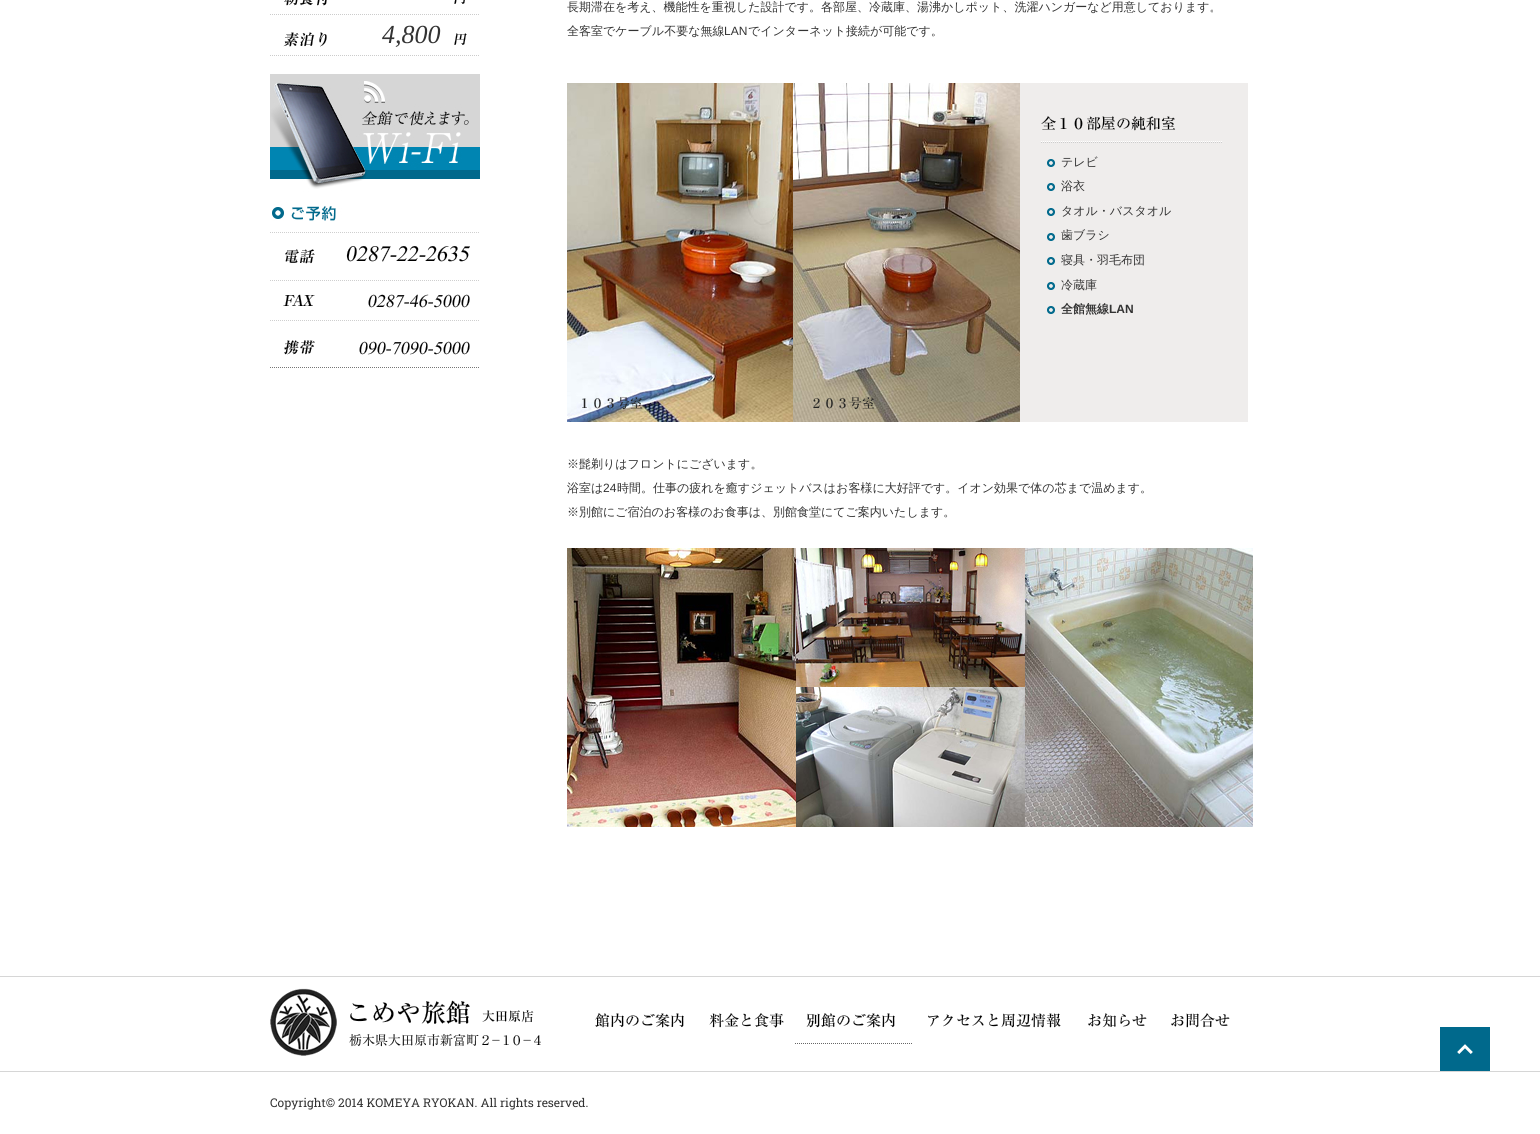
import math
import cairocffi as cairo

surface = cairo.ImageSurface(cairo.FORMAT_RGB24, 1540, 1134)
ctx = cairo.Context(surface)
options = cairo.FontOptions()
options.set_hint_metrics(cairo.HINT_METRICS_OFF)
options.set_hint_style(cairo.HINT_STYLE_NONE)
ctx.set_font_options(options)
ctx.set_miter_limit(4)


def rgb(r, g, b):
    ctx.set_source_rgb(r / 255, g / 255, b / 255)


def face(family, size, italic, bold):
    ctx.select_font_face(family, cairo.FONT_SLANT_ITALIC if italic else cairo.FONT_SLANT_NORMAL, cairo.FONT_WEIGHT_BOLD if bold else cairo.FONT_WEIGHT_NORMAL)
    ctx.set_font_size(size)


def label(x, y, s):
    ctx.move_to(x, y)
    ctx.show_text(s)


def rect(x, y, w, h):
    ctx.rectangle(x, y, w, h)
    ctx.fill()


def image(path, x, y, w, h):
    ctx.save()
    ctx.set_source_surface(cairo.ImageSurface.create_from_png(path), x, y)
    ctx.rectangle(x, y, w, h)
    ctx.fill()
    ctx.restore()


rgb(255, 255, 255)
ctx.paint()
image('image0.png', 284, 0, 181, 6)
ctx.new_path()
ctx.move_to(270, 14.5)
ctx.line_to(480, 14.5)
rgb(204, 204, 204)
ctx.set_line_width(1)
ctx.set_dash([1, 1])
ctx.stroke()
image('image1.png', 283, 32, 184, 15)
ctx.new_path()
ctx.move_to(270, 55.5)
ctx.line_to(480, 55.5)
ctx.stroke()
face('Liberation Serif', 26, 1, 0)
rgb(51, 51, 51)
label(382, 43, '4,800')
image('image2.png', 270, 74, 210, 147)
image('image3.png', 270, 232, 209, 32)
image('image4.png', 270, 280, 209, 41)
image('image5.png', 270, 340, 209, 28)
face('WenQuanYi Zen Hei Medium', 12, 0, 0)
label(567, 11, '長期滞在を考え、機能性を重視した設計です。各部屋、冷蔵庫、湯沸かしポット、洗濯ハンガーなど用意しております。')
label(567, 35, '全客室でケーブル不要な無線')
face('Liberation Sans', 12, 0, 0)
label(724, 35, 'LAN')
face('WenQuanYi Zen Hei Medium', 12, 0, 0)
label(748, 35, 'でインターネット接続が可能です。')
rgb(239, 237, 236)
rect(1020, 83, 228, 339)
image('image6.png', 567, 83, 453, 339)
image('image7.png', 1041, 116, 181, 27)
image('image8.png', 1047, 159, 8, 8)
rgb(51, 51, 51)
label(1061, 166, 'テレビ')
image('image8.png', 1047, 183, 8, 8)
label(1061, 190, '浴衣')
image('image8.png', 1047, 208, 8, 8)
label(1061, 215, 'タオル・バスタオル')
image('image8.png', 1047, 233, 8, 8)
label(1061, 239, '歯ブラシ')
image('image8.png', 1047, 257, 8, 8)
label(1061, 264, '寝具・羽毛布団')
image('image8.png', 1047, 282, 8, 8)
label(1061, 289, '冷蔵庫')
image('image8.png', 1047, 306, 8, 8)
face('WenQuanYi Zen Hei', 12, 0, 1)
label(1061, 313, '全館無線')
face('Liberation Sans', 12, 0, 1)
label(1109, 313, 'LAN')
face('WenQuanYi Zen Hei Medium', 12, 0, 0)
label(567, 468, '※髭剃りはフロントにございます。')
label(567, 492, '浴室は')
face('Liberation Sans', 12, 0, 0)
label(603, 492, '24')
face('WenQuanYi Zen Hei Medium', 12, 0, 0)
label(617, 492, '時間。仕事の疲れを癒すジェットバスはお客様に大好評です。イオン効果で体の芯まで温めます。')
label(567, 516, '※別館にご宿泊のお客様のお食事は、別館食堂にてご案内いたします。')
image('image9.png', 567, 548, 686, 279)
rgb(214, 214, 214)
rect(0, 976, 1540, 1)
rect(0, 1071, 1540, 1)
image('image10.png', 270, 988, 271, 68)
image('image11.png', 595, 1013, 89, 15)
image('image12.png', 709, 1013, 75, 15)
image('image13.png', 806, 1013, 89, 15)
ctx.new_path()
ctx.move_to(795, 1043.5)
ctx.line_to(912, 1043.5)
rgb(102, 102, 102)
ctx.stroke()
image('image14.png', 928, 1013, 133, 15)
image('image15.png', 1088, 1013, 59, 15)
image('image16.png', 1171, 1013, 59, 15)
image('image17.png', 1440, 1027, 50, 44)
face('Roboto Slab', 12, 0, 0)
rgb(51, 51, 51)
label(270, 1107, 'Copyright© 2014 KOMEYA RYOKAN. All rights reserved.')
surface.write_to_png('render.png')
